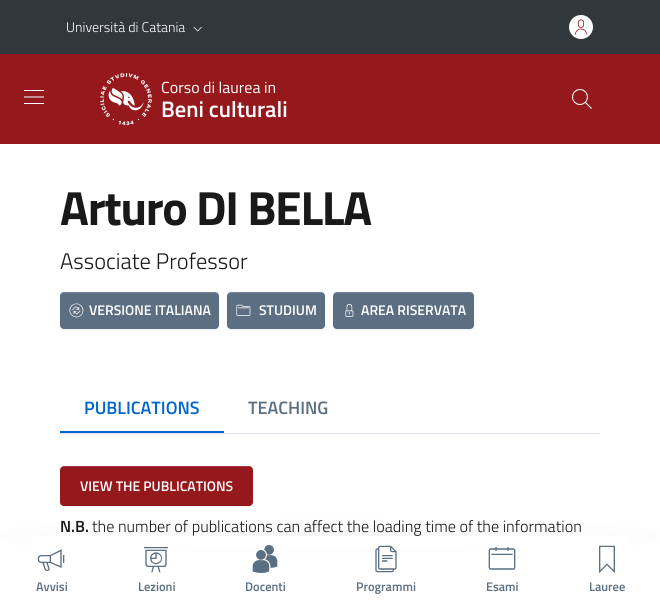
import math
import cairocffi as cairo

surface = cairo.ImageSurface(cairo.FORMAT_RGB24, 660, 600)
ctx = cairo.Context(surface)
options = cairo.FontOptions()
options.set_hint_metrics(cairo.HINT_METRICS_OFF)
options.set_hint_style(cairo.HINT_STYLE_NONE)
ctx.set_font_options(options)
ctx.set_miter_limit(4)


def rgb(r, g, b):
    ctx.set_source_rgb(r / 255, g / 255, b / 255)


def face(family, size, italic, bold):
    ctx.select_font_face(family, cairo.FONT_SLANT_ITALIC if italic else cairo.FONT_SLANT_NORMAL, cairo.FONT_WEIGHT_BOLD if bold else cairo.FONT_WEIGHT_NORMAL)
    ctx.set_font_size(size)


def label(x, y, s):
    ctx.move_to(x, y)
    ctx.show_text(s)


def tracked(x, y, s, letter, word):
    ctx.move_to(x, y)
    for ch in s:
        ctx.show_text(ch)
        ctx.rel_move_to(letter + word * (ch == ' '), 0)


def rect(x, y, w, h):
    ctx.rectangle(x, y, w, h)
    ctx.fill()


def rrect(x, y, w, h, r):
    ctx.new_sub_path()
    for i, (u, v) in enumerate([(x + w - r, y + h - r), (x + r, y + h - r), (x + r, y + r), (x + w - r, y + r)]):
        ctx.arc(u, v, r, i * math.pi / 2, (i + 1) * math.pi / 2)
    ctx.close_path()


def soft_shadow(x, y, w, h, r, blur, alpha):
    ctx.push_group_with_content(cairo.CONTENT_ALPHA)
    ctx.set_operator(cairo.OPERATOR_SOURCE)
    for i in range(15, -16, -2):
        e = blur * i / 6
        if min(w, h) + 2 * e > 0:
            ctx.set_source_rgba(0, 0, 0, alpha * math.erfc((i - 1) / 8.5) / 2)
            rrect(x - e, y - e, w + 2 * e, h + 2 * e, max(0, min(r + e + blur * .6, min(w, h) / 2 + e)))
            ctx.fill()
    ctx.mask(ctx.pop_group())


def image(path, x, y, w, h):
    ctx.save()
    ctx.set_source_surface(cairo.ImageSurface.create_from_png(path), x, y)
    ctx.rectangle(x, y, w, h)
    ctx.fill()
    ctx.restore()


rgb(255, 255, 255)
ctx.paint()
rgb(48, 55, 61)
rect(0, 0, 660, 54)
face('Titillium Web Light', 14, 0, 0)
rgb(255, 255, 255)
label(66, 32, 'Università di Catania')
image('image0.png', 193, 26, 9, 6)
ctx.arc(581, 27, 12, 0, 2 * math.pi)
ctx.fill()
image('image1.png', 575, 19, 12, 16)
rgb(149, 25, 28)
rect(0, 54, 660, 90)
image('image2.png', 24, 90, 20, 14)
image('image3.png', 100, 73, 52, 53)
face('Titillium Web', 16, 0, 0)
rgb(255, 255, 255)
label(161, 93, 'Corso di laurea in')
face('Titillium Web SemiBold', 22.5, 0, 0)
label(161, 117, 'Beni culturali')
image('image4.png', 572, 89, 20, 20)
face('Titillium Web', 48, 0, 1)
rgb(25, 25, 26)
tracked(60, 225, 'Arturo DI BELLA', -1.25, 0)
face('Titillium Web Light', 22.5, 0, 0)
label(60, 269, 'Associate Professor')
rgb(0, 0, 0)
soft_shadow(60, 293, 159, 37, 4, 0.5, 0.07)
rgb(92, 111, 130)
rrect(60, 292, 159, 37, 4)
ctx.fill()
ctx.set_source_rgba(1, 1, 1, 0.15)
ctx.new_path()
ctx.move_to(64, 293)
ctx.line_to(215, 293)
ctx.curve_to(217, 293, 219, 295, 219, 297)
ctx.curve_to(219, 295, 218, 293, 216, 292)
ctx.line_to(63, 292)
ctx.curve_to(61, 293, 60, 295, 60, 297)
ctx.curve_to(60, 295, 62, 293, 64, 293)
ctx.close_path()
ctx.fill()
image('image5.png', 69, 303, 15, 15)
face('Titillium Web SemiBold', 14, 0, 0)
rgb(255, 255, 255)
label(89, 315, 'VERSIONE ITALIANA')
rgb(0, 0, 0)
soft_shadow(227, 293, 98, 37, 4, 0.5, 0.07)
rgb(92, 111, 130)
rrect(227, 292, 98, 37, 4)
ctx.fill()
ctx.set_source_rgba(1, 1, 1, 0.15)
ctx.new_path()
ctx.move_to(231, 293)
ctx.line_to(321, 293)
ctx.curve_to(323, 293, 325, 295, 325, 297)
ctx.curve_to(325, 288, 310, 292, 306, 292)
ctx.line_to(246, 292)
ctx.curve_to(242, 292, 227, 288, 227, 297)
ctx.curve_to(227, 295, 229, 293, 231, 293)
ctx.close_path()
ctx.fill()
image('image6.png', 236, 304, 15, 12)
rgb(255, 255, 255)
label(259, 315, 'STUDIUM')
rgb(0, 0, 0)
soft_shadow(333, 293, 141, 37, 4, 0.5, 0.07)
rgb(92, 111, 130)
rrect(333, 292, 141, 37, 4)
ctx.fill()
ctx.set_source_rgba(1, 1, 1, 0.15)
ctx.new_path()
ctx.move_to(337, 293)
ctx.line_to(470, 293)
ctx.curve_to(472, 293, 474, 295, 474, 297)
ctx.line_to(474, 296)
ctx.curve_to(474, 294, 472, 292, 470, 292)
ctx.line_to(337, 292)
ctx.curve_to(335, 292, 333, 294, 333, 296)
ctx.line_to(333, 297)
ctx.curve_to(333, 295, 335, 293, 337, 293)
ctx.close_path()
ctx.fill()
image('image7.png', 345, 304, 9, 13)
rgb(255, 255, 255)
label(361, 315, 'AREA RISERVATA')
rgb(223, 228, 242)
rect(60, 433, 540, 1)
rgb(0, 102, 204)
rect(60, 431, 164, 2)
face('Titillium Web SemiBold', 18, 0, 0)
label(84, 414, 'PUBLICATIONS')
rgb(91, 111, 130)
label(248, 414, 'TEACHING')
rgb(0, 0, 0)
soft_shadow(60, 467, 193, 40, 4, 0.5, 0.07)
rgb(149, 25, 28)
rrect(60, 466, 193, 40, 4)
ctx.fill()
ctx.set_source_rgba(1, 1, 1, 0.15)
ctx.new_path()
ctx.move_to(64, 467)
ctx.line_to(249, 467)
ctx.curve_to(251, 467, 253, 469, 253, 471)
ctx.line_to(253, 470)
ctx.curve_to(253, 468, 251, 466, 249, 466)
ctx.line_to(64, 466)
ctx.curve_to(62, 466, 60, 468, 60, 470)
ctx.line_to(60, 471)
ctx.curve_to(60, 469, 62, 467, 64, 467)
ctx.close_path()
ctx.fill()
face('Titillium Web SemiBold', 14, 0, 0)
rgb(255, 255, 255)
label(80, 491, 'VIEW THE PUBLICATIONS')
face('Titillium Web SemiBold', 16.2, 0, 0)
rgb(25, 25, 26)
label(60, 532, 'N.B.')
face('Titillium Web Light', 16.2, 0, 0)
label(92, 532, 'the number of publications can affect the loading time of the information')
gradient = cairo.RadialGradient(0, 0, 0, 0, 0, 1)
gradient.set_matrix(cairo.Matrix(1 / 653, 0, 0, 1 / 31, -1 * 330 / 653, -1 * 536 / 31))
gradient.add_color_stop_rgba(0, 0, 0, 0, 0.04)
gradient.add_color_stop_rgba(0.6, 0, 0, 0, 0)
ctx.set_source(gradient)
ctx.new_path()
ctx.move_to(330, 514.5)
ctx.curve_to(585, 514.5, 792, 524, 792, 536)
ctx.curve_to(792, 548, 585, 557.5, 330, 557.5)
ctx.curve_to(75, 557.5, -132, 548, -132, 536)
ctx.curve_to(-132, 524, 75, 514.5, 330, 514.5)
ctx.close_path()
ctx.fill()
rgb(255, 255, 255)
rect(33, 536, 594, 14)
image('image8.png', 37, 549, 28, 22)
face('Titillium Web SemiBold', 12.5, 0, 0)
rgb(91, 111, 130)
label(36, 591, 'Avvisi')
image('image9.png', 144, 547, 24, 26)
label(138, 591, 'Lezioni')
image('image10.png', 252, 545, 26, 28)
label(245, 591, 'Docenti')
image('image11.png', 375, 545, 22, 28)
label(356, 591, 'Programmi')
image('image12.png', 488, 547, 28, 23)
label(486, 591, 'Esami')
image('image13.png', 599, 545, 16, 29)
label(589, 591, 'Lauree')
surface.write_to_png('render.png')
